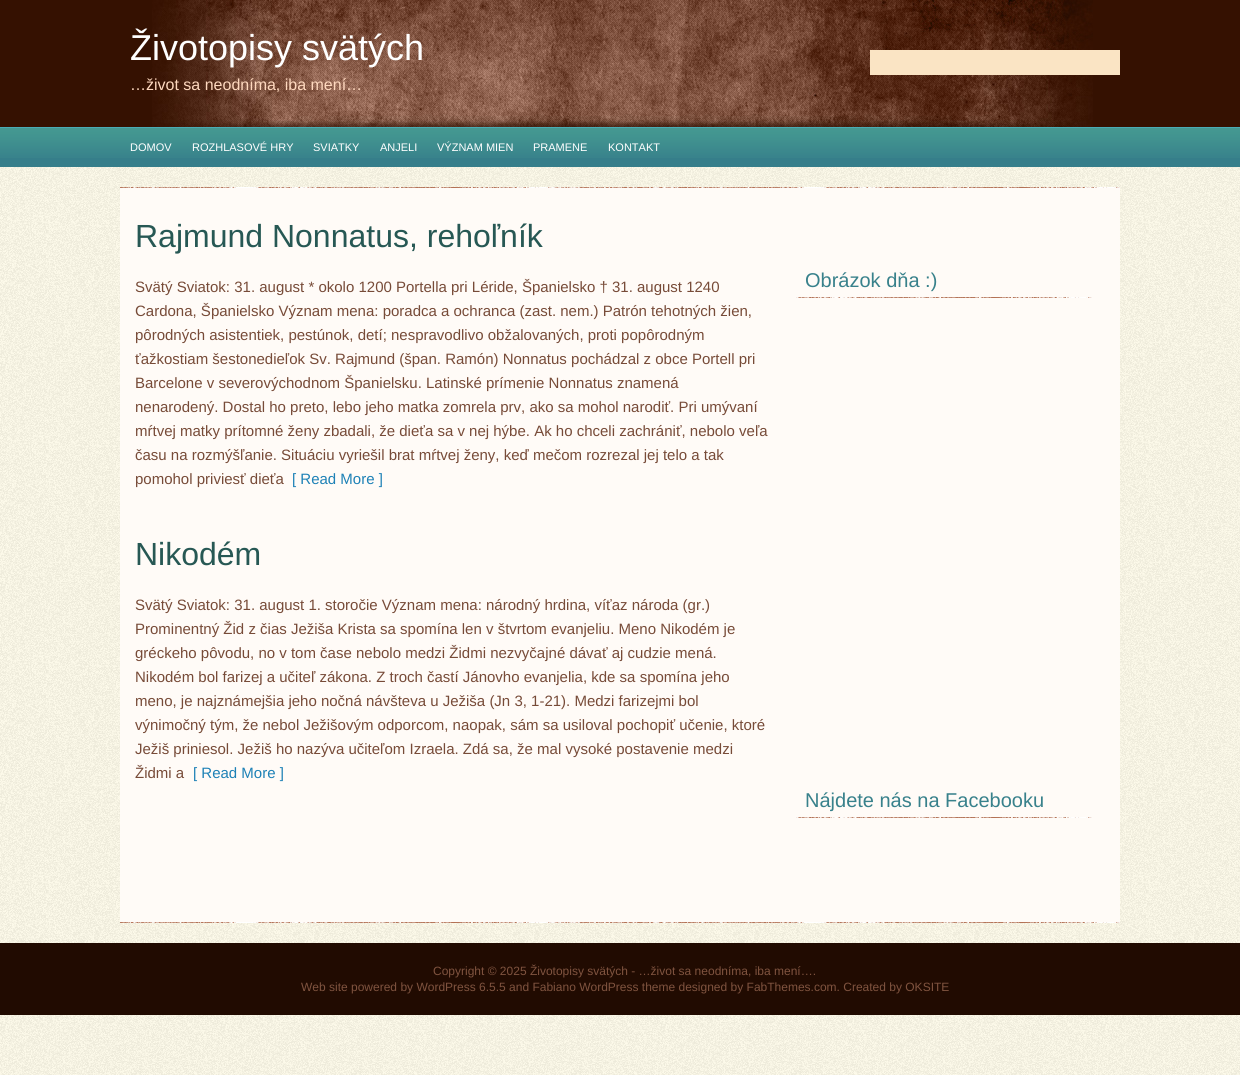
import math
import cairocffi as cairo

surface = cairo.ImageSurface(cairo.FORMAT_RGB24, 1240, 1075)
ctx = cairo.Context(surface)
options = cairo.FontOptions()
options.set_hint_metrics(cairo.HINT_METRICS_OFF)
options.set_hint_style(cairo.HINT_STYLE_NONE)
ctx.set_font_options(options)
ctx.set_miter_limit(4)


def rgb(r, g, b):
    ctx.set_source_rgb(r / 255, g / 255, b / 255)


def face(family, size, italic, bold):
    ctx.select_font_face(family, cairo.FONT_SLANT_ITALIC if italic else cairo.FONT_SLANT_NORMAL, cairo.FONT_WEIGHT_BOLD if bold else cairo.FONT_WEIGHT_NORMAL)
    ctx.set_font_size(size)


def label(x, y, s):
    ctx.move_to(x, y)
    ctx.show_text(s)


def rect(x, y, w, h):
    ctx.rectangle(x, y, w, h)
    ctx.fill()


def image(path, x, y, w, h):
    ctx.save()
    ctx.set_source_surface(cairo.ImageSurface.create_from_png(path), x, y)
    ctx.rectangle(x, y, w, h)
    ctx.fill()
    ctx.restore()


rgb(255, 255, 255)
ctx.paint()
image('image0.png', 0, 167, 1240, 908)
rgb(53, 17, 1)
rect(0, 0, 1240, 127)
image('image1.png', 152, 0, 941, 127)
face('Liberation Sans', 36, 0, 0)
rgb(255, 255, 255)
label(130, 60, 'Životopisy svätých')
face('Liberation Sans', 16, 0, 0)
rgb(255, 217, 191)
label(130, 90, '…život sa neodníma, iba mení…')
rgb(250, 228, 196)
rect(870, 50, 250, 25)
rgb(54, 126, 138)
rect(0, 158, 1240, 9)
image('image2.png', 0, 127, 1240, 31)
face('Liberation Sans', 11, 0, 0)
rgb(255, 255, 255)
label(130, 151, 'DOMOV')
label(192, 151, 'ROZHLASOVÉ HRY')
label(313, 151, 'SVIATKY')
label(380, 151, 'ANJELI')
label(437, 151, 'VÝZNAM MIEN')
label(533, 151, 'PRAMENE')
label(608, 151, 'KONTAKT')
image('image3.png', 120, 187, 1000, 1)
rgb(255, 251, 247)
rect(120, 188, 1000, 734)
face('Liberation Sans', 32, 0, 0)
rgb(39, 88, 84)
label(135, 247, 'Rajmund Nonnatus, rehoľník')
face('Liberation Sans', 15, 0, 0)
rgb(119, 75, 56)
label(135, 292, 'Svätý Sviatok: 31. august * okolo 1200 Portella pri Léride, Španielsko † 31. august 1240')
label(135, 316, 'Cardona, Španielsko Význam mena: poradca a ochranca (zast. nem.) Patrón tehotných žien,')
label(135, 340, 'pôrodných asistentiek, pestúnok, detí; nespravodlivo obžalovaných, proti popôrodným')
label(135, 364, 'ťažkostiam šestonedieľok Sv. Rajmund (špan. Ramón) Nonnatus pochádzal z obce Portell pri')
label(135, 388, 'Barcelone v severovýchodnom Španielsku. Latinské prímenie Nonnatus znamená')
label(135, 412, 'nenarodený. Dostal ho preto, lebo jeho matka zomrela prv, ako sa mohol narodiť. Pri umývaní')
label(135, 436, 'mŕtvej matky prítomné ženy zbadali, že dieťa sa v nej hýbe. Ak ho chceli zachrániť, nebolo veľa')
label(135, 460, 'času na rozmýšľanie. Situáciu vyriešil brat mŕtvej ženy, keď mečom rozrezal jej telo a tak')
label(135, 484, 'pomohol priviesť dieťa')
rgb(29, 129, 182)
label(292, 484, '[ Read More ]')
face('Liberation Sans', 32, 0, 0)
rgb(39, 88, 84)
label(135, 565, 'Nikodém')
face('Liberation Sans', 15, 0, 0)
rgb(119, 75, 56)
label(135, 610, 'Svätý Sviatok: 31. august 1. storočie Význam mena: národný hrdina, víťaz národa (gr.)')
label(135, 634, 'Prominentný Žid z čias Ježiša Krista sa spomína len v štvrtom evanjeliu. Meno Nikodém je')
label(135, 658, 'gréckeho pôvodu, no v tom čase nebolo medzi Židmi nezvyčajné dávať aj cudzie mená.')
label(135, 682, 'Nikodém bol farizej a učiteľ zákona. Z troch častí Jánovho evanjelia, kde sa spomína jeho')
label(135, 706, 'meno, je najznámejšia jeho nočná návšteva u Ježiša (Jn 3, 1-21). Medzi farizejmi bol')
label(135, 730, 'výnimočný tým, že nebol Ježišovým odporcom, naopak, sám sa usiloval pochopiť učenie, ktoré')
label(135, 754, 'Ježiš priniesol. Ježiš ho nazýva učiteľom Izraela. Zdá sa, že mal vysoké postavenie medzi')
label(135, 778, 'Židmi a')
rgb(29, 129, 182)
label(193, 778, '[ Read More ]')
image('image4.png', 795, 297, 297, 1)
face('Liberation Sans', 20, 0, 0)
rgb(56, 129, 139)
label(805, 287, 'Obrázok dňa :)')
image('image4.png', 795, 817, 297, 1)
label(805, 807, 'Nájdete nás na Facebooku')
image('image3.png', 120, 922, 1000, 1)
rgb(33, 11, 1)
rect(0, 943, 1240, 72)
face('Liberation Sans', 12, 0, 0)
rgb(127, 83, 63)
label(433, 975, 'Copyright © 2025 Životopisy svätých - …život sa neodníma, iba mení….')
label(301, 991, 'Web site powered by WordPress 6.5.5 and Fabiano WordPress theme designed by FabThemes.com. Created by OKSITE')
surface.write_to_png('render.png')
